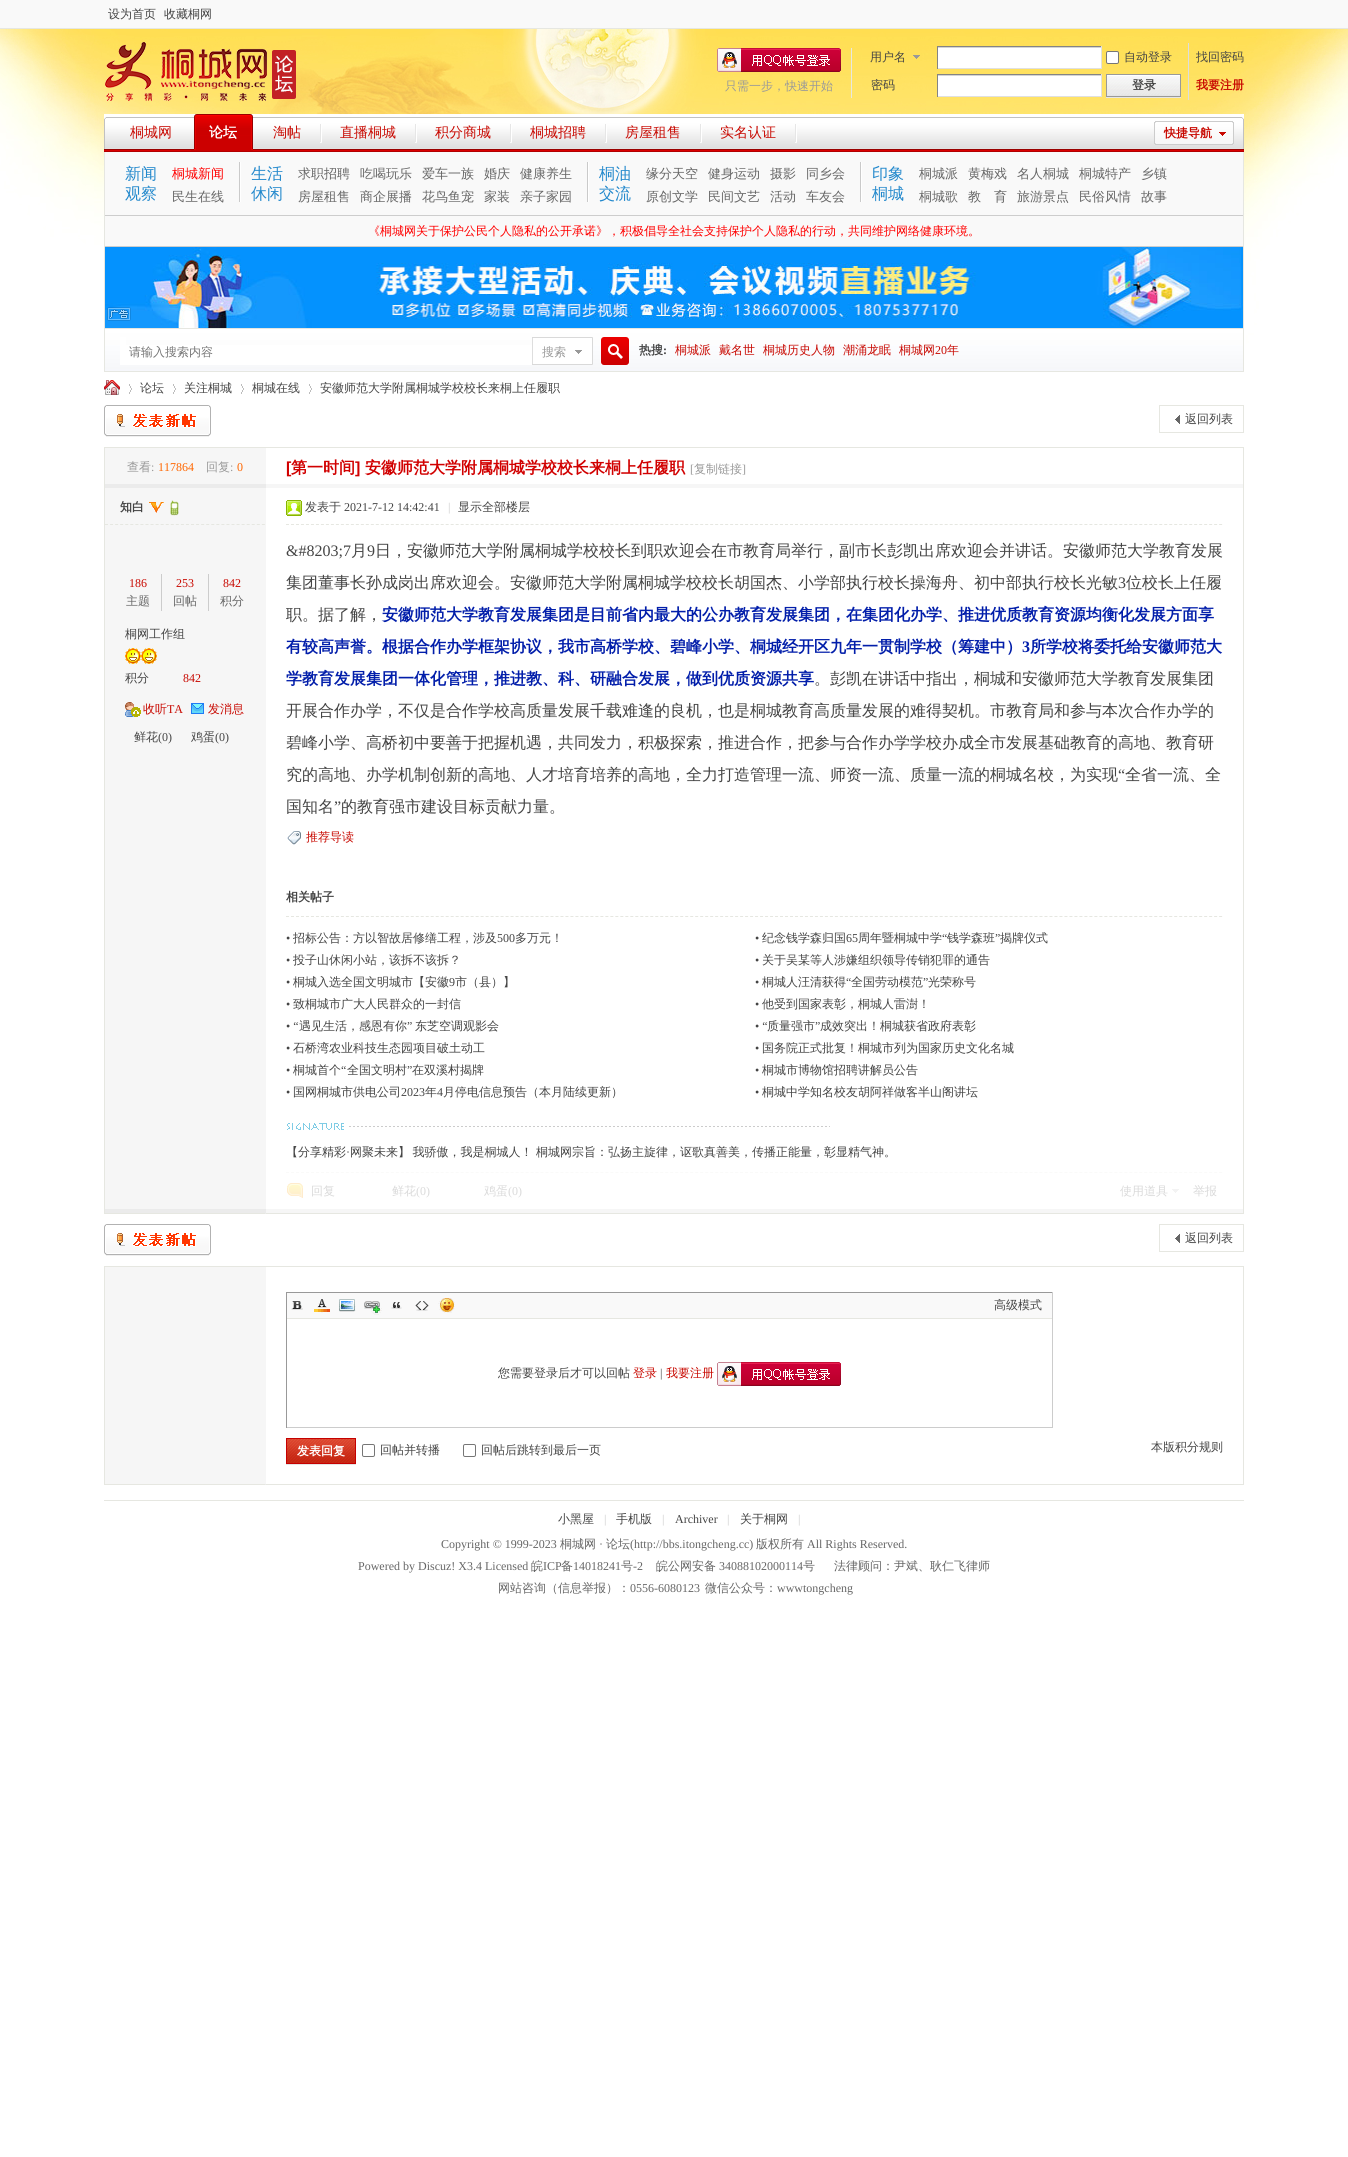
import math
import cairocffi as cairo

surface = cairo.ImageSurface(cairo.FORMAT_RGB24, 1348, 2157)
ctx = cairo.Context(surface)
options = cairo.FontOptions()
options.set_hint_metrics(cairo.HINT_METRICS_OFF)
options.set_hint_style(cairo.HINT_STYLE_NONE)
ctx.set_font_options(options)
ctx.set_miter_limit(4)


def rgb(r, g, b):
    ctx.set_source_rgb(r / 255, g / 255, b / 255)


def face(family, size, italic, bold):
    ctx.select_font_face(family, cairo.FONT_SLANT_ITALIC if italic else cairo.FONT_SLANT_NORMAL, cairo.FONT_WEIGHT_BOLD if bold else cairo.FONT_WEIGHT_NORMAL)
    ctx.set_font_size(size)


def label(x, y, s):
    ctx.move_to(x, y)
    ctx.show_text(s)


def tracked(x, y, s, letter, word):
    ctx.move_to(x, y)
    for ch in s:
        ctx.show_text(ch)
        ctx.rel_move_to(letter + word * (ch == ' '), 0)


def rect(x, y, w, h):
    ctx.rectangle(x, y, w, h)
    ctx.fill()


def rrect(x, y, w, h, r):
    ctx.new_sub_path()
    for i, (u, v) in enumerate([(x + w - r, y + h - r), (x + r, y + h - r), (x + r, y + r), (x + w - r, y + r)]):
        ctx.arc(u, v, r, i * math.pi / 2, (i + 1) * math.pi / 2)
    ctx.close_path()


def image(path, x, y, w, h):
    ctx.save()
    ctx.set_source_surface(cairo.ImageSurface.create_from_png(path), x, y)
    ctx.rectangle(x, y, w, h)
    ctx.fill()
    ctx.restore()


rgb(255, 255, 255)
ctx.paint()
rgb(249, 249, 249)
rect(0, 0, 1348, 28)
rgb(230, 231, 225)
rect(0, 28, 1348, 1)
face('WenQuanYi Zen Hei Medium', 12, 0, 0)
rgb(68, 68, 68)
label(108, 18, '设为首页')
label(164, 18, '收藏桐网')
image('image0.png', 0, 29, 1348, 322)
image('image1.png', 105, 42, 191, 59)
rgb(230, 231, 225)
rect(851, 48, 1, 50)
image('image2.png', 717, 48, 124, 24)
rgb(153, 153, 153)
label(725, 90, '只需一步，快速开始')
image('image3.png', 913, 55, 7, 4)
rgb(68, 68, 68)
label(870, 61, '用户名')
rgb(255, 255, 255)
rect(938, 48, 163, 20)
rgb(212, 212, 212)
rect(937, 47, 165, 1)
rgb(132, 132, 132)
rect(937, 46, 165, 1)
rgb(224, 224, 224)
rect(1101, 46, 1, 23)
rect(937, 68, 165, 1)
rgb(132, 132, 132)
rect(937, 46, 1, 23)
rgb(255, 255, 255)
rrect(1106.5, 51.5, 12, 12, 1.5)
ctx.fill_preserve()
rgb(118, 118, 118)
ctx.set_line_width(1)
ctx.stroke()
rgb(68, 68, 68)
label(1124, 61, '自动登录')
label(1196, 61, '找回密码')
label(871, 89, '密码')
rgb(255, 255, 255)
rect(938, 76, 163, 20)
rgb(212, 212, 212)
rect(937, 75, 165, 1)
rgb(132, 132, 132)
rect(937, 74, 165, 1)
rgb(224, 224, 224)
rect(1101, 74, 1, 23)
rect(937, 96, 165, 1)
rgb(132, 132, 132)
rect(937, 74, 1, 23)
rgb(221, 221, 221)
rect(1188, 43, 1, 57)
rgb(229, 229, 229)
rect(1106, 97, 75, 1)
rect(1107, 95, 73, 1)
image('image4.png', 1107, 75, 73, 20)
ctx.rectangle(1106.5, 74.5, 74, 22)
rgb(153, 153, 153)
ctx.stroke()
face('WenQuanYi Zen Hei', 12, 0, 1)
rgb(68, 68, 68)
label(1132, 89, '登录')
rgb(200, 9, 1)
label(1196, 89, '我要注册')
image('image5.png', 104, 114, 1140, 38)
face('WenQuanYi Zen Hei Medium', 14, 0, 0)
label(130, 137, '桐城网')
image('image6.png', 191, 114, 64, 38)
image('image7.png', 191, 114, 58, 36)
face('WenQuanYi Zen Hei', 14, 0, 1)
rgb(255, 255, 255)
label(209, 137, '论坛')
image('image8.png', 320, 124, 2, 19)
face('WenQuanYi Zen Hei Medium', 14, 0, 0)
rgb(200, 9, 1)
label(273, 137, '淘帖')
image('image8.png', 415, 124, 2, 19)
label(340, 137, '直播桐城')
image('image8.png', 510, 124, 2, 19)
label(435, 137, '积分商城')
image('image8.png', 605, 124, 2, 19)
label(530, 137, '桐城招聘')
image('image8.png', 700, 124, 2, 19)
label(625, 137, '房屋租售')
image('image8.png', 795, 124, 2, 19)
label(720, 137, '实名认证')
image('image9.png', 1154, 121, 80, 24)
face('WenQuanYi Zen Hei', 12, 0, 1)
label(1164, 137, '快捷导航')
rgb(249, 249, 249)
rect(105, 152, 1138, 94)
rgb(230, 231, 225)
rect(1243, 152, 1, 220)
rect(104, 328, 1140, 1)
rect(104, 152, 1, 177)
face('WenQuanYi Zen Hei Medium', 16, 0, 0)
rgb(34, 136, 204)
label(125, 179, '新闻')
label(125, 199, '观察')
face('WenQuanYi Zen Hei Medium', 13, 0, 0)
rgb(255, 0, 0)
label(172, 178, '桐城新闻')
rgb(102, 102, 102)
label(172, 201, '民生在线')
rgb(255, 255, 255)
rect(240, 162, 1, 40)
rgb(202, 202, 202)
rect(239, 162, 1, 40)
face('WenQuanYi Zen Hei Medium', 16, 0, 0)
rgb(34, 136, 204)
label(251, 179, '生活')
label(251, 199, '休闲')
face('WenQuanYi Zen Hei Medium', 13, 0, 0)
rgb(102, 102, 102)
label(298, 178, '求职招聘')
label(360, 178, '吃喝玩乐')
label(422, 178, '爱车一族')
label(484, 178, '婚庆')
label(520, 178, '健康养生')
label(298, 201, '房屋租售')
label(360, 201, '商企展播')
label(422, 201, '花鸟鱼宠')
label(484, 201, '家装')
label(520, 201, '亲子家园')
rgb(255, 255, 255)
rect(588, 162, 1, 40)
rgb(202, 202, 202)
rect(587, 162, 1, 40)
face('WenQuanYi Zen Hei Medium', 16, 0, 0)
rgb(34, 136, 204)
label(599, 179, '桐油')
label(599, 199, '交流')
face('WenQuanYi Zen Hei Medium', 13, 0, 0)
rgb(102, 102, 102)
label(646, 178, '缘分天空')
label(708, 178, '健身运动')
label(770, 178, '摄影')
label(806, 178, '同乡会')
label(646, 201, '原创文学')
label(708, 201, '民间文艺')
label(770, 201, '活动')
label(806, 201, '车友会')
rgb(255, 255, 255)
rect(861, 162, 1, 40)
rgb(202, 202, 202)
rect(860, 162, 1, 40)
face('WenQuanYi Zen Hei Medium', 16, 0, 0)
rgb(34, 136, 204)
label(872, 179, '印象')
label(872, 199, '桐城')
face('WenQuanYi Zen Hei Medium', 13, 0, 0)
rgb(102, 102, 102)
label(919, 178, '桐城派')
label(968, 178, '黄梅戏')
label(1017, 178, '名人桐城')
label(1079, 178, '桐城特产')
label(1141, 178, '乡镇')
label(919, 201, '桐城歌')
label(968, 201, '教　育')
label(1017, 201, '旅游景点')
label(1079, 201, '民俗风情')
label(1141, 201, '故事')
rgb(205, 205, 205)
rect(105, 215, 1138, 1)
face('WenQuanYi Zen Hei Medium', 12, 0, 0)
rgb(255, 0, 0)
label(368, 235, '《桐城网关于保护公民个人隐私的公开承诺》，积极倡导全社会支持保护个人隐私的行动，共同维护网络健康环境。')
rgb(205, 205, 205)
rect(105, 246, 1138, 1)
image('image10.png', 105, 247, 1138, 81)
image('image11.png', 107, 307, 24, 14)
image('image12.png', 105, 329, 1138, 42)
rgb(230, 231, 225)
rect(104, 371, 1140, 1)
rect(104, 329, 1, 43)
rgb(255, 255, 255)
rect(120, 337, 6, 28)
rect(126, 345, 406, 20)
rgb(117, 117, 117)
label(129, 356, '请输入搜索内容')
image('image13.png', 532, 337, 61, 28)
rgb(153, 153, 153)
label(542, 356, '搜索')
image('image14.png', 601, 337, 28, 28)
face('WenQuanYi Zen Hei', 12, 0, 1)
rgb(68, 68, 68)
label(639, 354, '热搜')
face('Liberation Serif', 12, 0, 1)
label(663, 354, ':')
face('WenQuanYi Zen Hei Medium', 12, 0, 0)
rgb(200, 9, 1)
label(675, 354, '桐城派')
label(719, 354, '戴名世')
label(763, 354, '桐城历史人物')
label(843, 354, '潮涌龙眠')
label(899, 354, '桐城网')
face('Liberation Serif', 12, 0, 0)
label(935, 354, '20')
face('WenQuanYi Zen Hei Medium', 12, 0, 0)
label(947, 354, '年')
image('image15.png', 104, 380, 16, 15)
image('image16.png', 129, 384, 3, 10)
rgb(68, 68, 68)
label(140, 392, '论坛')
image('image16.png', 173, 384, 3, 10)
label(184, 392, '关注桐城')
image('image16.png', 241, 384, 3, 10)
label(252, 392, '桐城在线')
image('image16.png', 309, 384, 3, 10)
label(320, 392, '安徽师范大学附属桐城学校校长来桐上任履职')
image('image17.png', 104, 405, 107, 32)
image('image18.png', 1175, 415, 5, 9)
ctx.rectangle(1159.5, 405.5, 84, 27)
rgb(230, 231, 225)
ctx.stroke()
rgb(68, 68, 68)
label(1185, 423, '返回列表')
ctx.rectangle(104.5, 447.5, 1139, 766)
rgb(230, 231, 225)
ctx.stroke()
rgb(246, 246, 246)
rect(105, 448, 161, 36)
rgb(153, 153, 153)
label(127, 471, '查看')
face('Liberation Serif', 12, 0, 0)
label(151, 471, ':')
rgb(255, 102, 0)
label(158, 471, '117864')
face('WenQuanYi Zen Hei Medium', 12, 0, 0)
rgb(153, 153, 153)
label(206, 471, '回复')
face('Liberation Serif', 12, 0, 0)
label(230, 471, ':')
rgb(255, 102, 0)
label(237, 471, '0')
face('Liberation Sans', 16, 0, 1)
rgb(209, 0, 0)
label(286, 473, '[')
face('WenQuanYi Zen Hei', 16, 0, 1)
label(291, 473, '第一时间')
face('Liberation Sans', 16, 0, 1)
label(355, 473, ']')
face('WenQuanYi Zen Hei', 16, 0, 1)
label(365, 473, '安徽师范大学附属桐城学校校长来桐上任履职')
face('Liberation Serif', 12, 0, 0)
rgb(153, 153, 153)
label(690, 473, '[')
face('WenQuanYi Zen Hei Medium', 12, 0, 0)
label(694, 473, '复制链接')
face('Liberation Serif', 12, 0, 0)
label(742, 473, ']')
rgb(235, 235, 235)
rect(105, 484, 161, 4)
rgb(246, 246, 246)
rect(266, 484, 977, 4)
rect(105, 488, 161, 721)
ctx.new_path()
ctx.move_to(105, 524.5)
ctx.line_to(265, 524.5)
rgb(230, 231, 225)
ctx.set_dash([3, 2.06])
ctx.stroke()
face('WenQuanYi Zen Hei', 12, 0, 1)
rgb(68, 68, 68)
label(120, 511, '知白')
image('image19.png', 149, 502, 15, 11)
image('image20.png', 170, 500, 9, 16)
rgb(204, 204, 204)
rect(161, 574, 1, 37)
face('Liberation Serif', 12, 0, 0)
rgb(200, 9, 1)
label(129, 587, '186')
face('WenQuanYi Zen Hei Medium', 12, 0, 0)
rgb(102, 102, 102)
label(126, 605, '主题')
rgb(204, 204, 204)
rect(208, 574, 1, 37)
face('Liberation Serif', 12, 0, 0)
rgb(200, 9, 1)
label(176, 587, '253')
face('WenQuanYi Zen Hei Medium', 12, 0, 0)
rgb(102, 102, 102)
label(173, 605, '回帖')
face('Liberation Serif', 12, 0, 0)
rgb(200, 9, 1)
label(223, 587, '842')
face('WenQuanYi Zen Hei Medium', 12, 0, 0)
rgb(102, 102, 102)
label(220, 605, '积分')
rgb(68, 68, 68)
label(125, 638, '桐网工作组')
image('image21.png', 125, 648, 16, 16)
image('image21.png', 141, 648, 16, 16)
label(125, 682, '积分')
face('Liberation Serif', 12, 0, 0)
rgb(200, 9, 1)
label(183, 682, '842')
image('image22.png', 125, 702, 16, 15)
face('WenQuanYi Zen Hei Medium', 12, 0, 0)
label(143, 713, '收听')
face('Liberation Serif', 12, 0, 0)
label(167, 713, 'TA')
image('image23.png', 191, 703, 13, 11)
face('WenQuanYi Zen Hei Medium', 12, 0, 0)
label(208, 713, '发消息')
rgb(68, 68, 68)
label(134, 741, '鲜花')
face('Liberation Serif', 12, 0, 0)
label(158, 741, '(0)')
face('WenQuanYi Zen Hei Medium', 12, 0, 0)
label(191, 741, '鸡蛋')
face('Liberation Serif', 12, 0, 0)
label(215, 741, '(0)')
ctx.new_path()
ctx.move_to(286, 524.5)
ctx.line_to(1223, 524.5)
rgb(230, 231, 225)
ctx.set_dash([3, 1.99])
ctx.stroke()
image('image24.png', 286, 500, 16, 16)
face('WenQuanYi Zen Hei Medium', 12, 0, 0)
rgb(68, 68, 68)
label(305, 511, '发表于')
face('Liberation Serif', 12, 0, 0)
label(344, 511, '2021-7-12 14:42:41')
rgb(204, 204, 204)
label(448, 511, '|')
face('WenQuanYi Zen Hei Medium', 12, 0, 0)
rgb(68, 68, 68)
label(458, 511, '显示全部楼层')
face('Liberation Serif', 16, 0, 0)
label(286, 556, '&#8203;7')
face('WenQuanYi Zen Hei Medium', 16, 0, 0)
label(351, 556, '月')
face('Liberation Serif', 16, 0, 0)
label(367, 556, '9')
face('WenQuanYi Zen Hei Medium', 16, 0, 0)
label(375, 556, '日，安徽师范大学附属桐城学校校长到职欢迎会在市教育局举行，副市长彭凯出席欢迎会并讲话。安徽师范大学教育发展')
label(286, 588, '集团董事长孙成岗出席欢迎会。安徽师范大学附属桐城学校校长胡国杰、小学部执行校长操海舟、初中部执行校长光敏')
face('Liberation Serif', 16, 0, 0)
label(1118, 588, '3')
face('WenQuanYi Zen Hei Medium', 16, 0, 0)
label(1126, 588, '位校长上任履')
label(286, 620, '职。据了解，')
face('WenQuanYi Zen Hei', 16, 0, 1)
rgb(2, 30, 170)
label(382, 620, '安徽师范大学教育发展集团是目前省内最大的公办教育发展集团，在集团化办学、推进优质教育资源均衡化发展方面享')
label(286, 652, '有较高声誉。根据合作办学框架协议，我市高桥学校、碧峰小学、桐城经开区九年一贯制学校（筹建中）')
face('Liberation Serif', 16, 0, 1)
label(1022, 652, '3')
face('WenQuanYi Zen Hei', 16, 0, 1)
label(1030, 652, '所学校将委托给安徽师范大')
label(286, 684, '学教育发展集团一体化管理，推进教、科、研融合发展，做到优质资源共享')
face('WenQuanYi Zen Hei Medium', 16, 0, 0)
rgb(68, 68, 68)
label(814, 684, '。彭凯在讲话中指出，桐城和安徽师范大学教育发展集团')
label(286, 716, '开展合作办学，不仅是合作学校高质量发展千载难逢的良机，也是桐城教育高质量发展的难得契机。市教育局和参与本次合作办学的')
label(286, 748, '碧峰小学、高桥初中要善于把握机遇，共同发力，积极探索，推进合作，把参与合作办学学校办成全市发展基础教育的高地、教育研')
label(286, 780, '究的高地、办学机制创新的高地、人才培育培养的高地，全力打造管理一流、师资一流、质量一流的桐城名校，为实现')
face('Liberation Serif', 16, 0, 0)
label(1118, 780, '“')
face('WenQuanYi Zen Hei Medium', 16, 0, 0)
label(1125, 780, '全省一流、全')
label(286, 812, '国知名')
face('Liberation Serif', 16, 0, 0)
label(334, 812, '”')
face('WenQuanYi Zen Hei Medium', 16, 0, 0)
label(341, 812, '的教育强市建设目标贡献力量。')
image('image25.png', 287, 831, 14, 14)
face('WenQuanYi Zen Hei Medium', 12, 0, 0)
rgb(200, 9, 1)
label(306, 841, '推荐导读')
ctx.new_path()
ctx.move_to(286, 916.5)
ctx.line_to(1223, 916.5)
rgb(230, 231, 225)
ctx.stroke()
face('WenQuanYi Zen Hei', 12, 0, 1)
rgb(68, 68, 68)
label(286, 901, '相关帖子')
face('Liberation Serif', 12, 0, 0)
label(286, 942, '•')
face('WenQuanYi Zen Hei Medium', 12, 0, 0)
label(293, 942, '招标公告：方以智故居修缮工程，涉及')
face('Liberation Serif', 12, 0, 0)
label(497, 942, '500')
face('WenQuanYi Zen Hei Medium', 12, 0, 0)
label(515, 942, '多万元！')
face('Liberation Serif', 12, 0, 0)
label(755, 942, '•')
face('WenQuanYi Zen Hei Medium', 12, 0, 0)
label(762, 942, '纪念钱学森归国')
face('Liberation Serif', 12, 0, 0)
label(846, 942, '65')
face('WenQuanYi Zen Hei Medium', 12, 0, 0)
label(858, 942, '周年暨桐城中学')
face('Liberation Serif', 12, 0, 0)
label(942, 942, '“')
face('WenQuanYi Zen Hei Medium', 12, 0, 0)
label(947, 942, '钱学森班')
face('Liberation Serif', 12, 0, 0)
label(995, 942, '”')
face('WenQuanYi Zen Hei Medium', 12, 0, 0)
label(1000, 942, '揭牌仪式')
face('Liberation Serif', 12, 0, 0)
label(286, 964, '•')
face('WenQuanYi Zen Hei Medium', 12, 0, 0)
label(293, 964, '投子山休闲小站，该拆不该拆？')
face('Liberation Serif', 12, 0, 0)
label(755, 964, '•')
face('WenQuanYi Zen Hei Medium', 12, 0, 0)
label(762, 964, '关于吴某等人涉嫌组织领导传销犯罪的通告')
face('Liberation Serif', 12, 0, 0)
label(286, 986, '•')
face('WenQuanYi Zen Hei Medium', 12, 0, 0)
label(293, 986, '桐城入选全国文明城市【安徽')
face('Liberation Serif', 12, 0, 0)
label(449, 986, '9')
face('WenQuanYi Zen Hei Medium', 12, 0, 0)
label(455, 986, '市（县）】')
face('Liberation Serif', 12, 0, 0)
label(755, 986, '•')
face('WenQuanYi Zen Hei Medium', 12, 0, 0)
label(762, 986, '桐城人汪清获得')
face('Liberation Serif', 12, 0, 0)
label(846, 986, '“')
face('WenQuanYi Zen Hei Medium', 12, 0, 0)
label(851, 986, '全国劳动模范')
face('Liberation Serif', 12, 0, 0)
label(923, 986, '”')
face('WenQuanYi Zen Hei Medium', 12, 0, 0)
label(928, 986, '光荣称号')
face('Liberation Serif', 12, 0, 0)
label(286, 1008, '•')
face('WenQuanYi Zen Hei Medium', 12, 0, 0)
label(293, 1008, '致桐城市广大人民群众的一封信')
face('Liberation Serif', 12, 0, 0)
label(755, 1008, '•')
face('WenQuanYi Zen Hei Medium', 12, 0, 0)
label(762, 1008, '他受到国家表彰，桐城人雷澍！')
face('Liberation Serif', 12, 0, 0)
label(286, 1030, '• “')
face('WenQuanYi Zen Hei Medium', 12, 0, 0)
label(299, 1030, '遇见生活，感恩有你')
face('Liberation Serif', 12, 0, 0)
label(407, 1030, '”')
face('WenQuanYi Zen Hei Medium', 12, 0, 0)
label(415, 1030, '东芝空调观影会')
face('Liberation Serif', 12, 0, 0)
label(755, 1030, '• “')
face('WenQuanYi Zen Hei Medium', 12, 0, 0)
label(767, 1030, '质量强市')
face('Liberation Serif', 12, 0, 0)
label(815, 1030, '”')
face('WenQuanYi Zen Hei Medium', 12, 0, 0)
label(820, 1030, '成效突出！桐城获省政府表彰')
face('Liberation Serif', 12, 0, 0)
label(286, 1052, '•')
face('WenQuanYi Zen Hei Medium', 12, 0, 0)
label(293, 1052, '石桥湾农业科技生态园项目破土动工')
face('Liberation Serif', 12, 0, 0)
label(755, 1052, '•')
face('WenQuanYi Zen Hei Medium', 12, 0, 0)
label(762, 1052, '国务院正式批复！桐城市列为国家历史文化名城')
face('Liberation Serif', 12, 0, 0)
label(286, 1074, '•')
face('WenQuanYi Zen Hei Medium', 12, 0, 0)
label(293, 1074, '桐城首个')
face('Liberation Serif', 12, 0, 0)
label(341, 1074, '“')
face('WenQuanYi Zen Hei Medium', 12, 0, 0)
label(347, 1074, '全国文明村')
face('Liberation Serif', 12, 0, 0)
label(407, 1074, '”')
face('WenQuanYi Zen Hei Medium', 12, 0, 0)
label(412, 1074, '在双溪村揭牌')
face('Liberation Serif', 12, 0, 0)
label(755, 1074, '•')
face('WenQuanYi Zen Hei Medium', 12, 0, 0)
label(762, 1074, '桐城市博物馆招聘讲解员公告')
face('Liberation Serif', 12, 0, 0)
label(286, 1096, '•')
face('WenQuanYi Zen Hei Medium', 12, 0, 0)
label(293, 1096, '国网桐城市供电公司')
face('Liberation Serif', 12, 0, 0)
label(401, 1096, '2023')
face('WenQuanYi Zen Hei Medium', 12, 0, 0)
label(425, 1096, '年')
face('Liberation Serif', 12, 0, 0)
label(437, 1096, '4')
face('WenQuanYi Zen Hei Medium', 12, 0, 0)
label(443, 1096, '月停电信息预告（本月陆续更新）')
face('Liberation Serif', 12, 0, 0)
label(755, 1096, '•')
face('WenQuanYi Zen Hei Medium', 12, 0, 0)
label(762, 1096, '桐城中学知名校友胡阿祥做客半山阁讲坛')
image('image26.png', 287, 1123, 543, 7)
label(286, 1156, '【分享精彩')
face('Liberation Serif', 12, 0, 0)
label(346, 1156, '·')
face('WenQuanYi Zen Hei Medium', 12, 0, 0)
tracked(350, 1156, '网聚未来】 我骄傲，我是桐城人！', 0, -1)
label(536, 1156, '桐城网宗旨：弘扬主旋律，讴歌真善美，传播正能量，彰显精气神。')
ctx.new_path()
ctx.move_to(286, 1172.5)
ctx.line_to(1223, 1172.5)
rgb(250, 250, 249)
ctx.stroke()
image('image27.png', 287, 1183, 16, 15)
rgb(218, 218, 218)
label(311, 1195, '回复')
label(392, 1195, '鲜花')
face('Liberation Serif', 12, 0, 0)
label(416, 1195, '(0)')
face('WenQuanYi Zen Hei Medium', 12, 0, 0)
label(484, 1195, '鸡蛋')
face('Liberation Serif', 12, 0, 0)
label(508, 1195, '(0)')
face('WenQuanYi Zen Hei Medium', 12, 0, 0)
label(1120, 1195, '使用道具')
image('image28.png', 1172, 1189, 7, 4)
label(1193, 1195, '举报')
rgb(235, 235, 235)
rect(265, 1209, 1, 5)
rect(105, 1209, 161, 4)
rgb(246, 246, 246)
rect(266, 1209, 977, 4)
image('image17.png', 104, 1224, 107, 32)
image('image18.png', 1175, 1234, 5, 9)
ctx.rectangle(1159.5, 1224.5, 84, 27)
rgb(230, 231, 225)
ctx.set_dash([])
ctx.stroke()
rgb(68, 68, 68)
label(1185, 1242, '返回列表')
ctx.rectangle(104.5, 1266.5, 1139, 218)
rgb(230, 231, 225)
ctx.stroke()
rgb(235, 235, 235)
rect(265, 1484, 1, 1)
rgb(246, 246, 246)
rect(105, 1267, 161, 217)
rgb(153, 153, 153)
rect(286, 1292, 767, 1)
rgb(204, 204, 204)
rect(1052, 1292, 1, 136)
rect(286, 1427, 767, 1)
rgb(153, 153, 153)
rect(286, 1292, 1, 136)
rgb(249, 249, 249)
rect(287, 1293, 765, 25)
rgb(230, 231, 225)
rect(287, 1318, 765, 1)
image('image29.png', 291, 1301, 12, 9)
image('image30.png', 314, 1299, 16, 14)
image('image31.png', 339, 1299, 17, 13)
image('image32.png', 364, 1301, 18, 14)
image('image33.png', 391, 1302, 11, 7)
image('image34.png', 415, 1301, 14, 10)
image('image35.png', 438, 1298, 17, 15)
rgb(68, 68, 68)
label(994, 1309, '高级模式')
label(498, 1377, '您需要登录后才可以回帖')
rgb(200, 9, 1)
label(633, 1377, '登录')
face('Liberation Serif', 12, 0, 0)
rgb(68, 68, 68)
label(660, 1377, '|')
face('WenQuanYi Zen Hei Medium', 12, 0, 0)
rgb(200, 9, 1)
label(666, 1377, '我要注册')
image('image36.png', 717, 1362, 124, 24)
rgb(229, 229, 229)
rect(286, 1464, 70, 1)
image('image37.png', 287, 1439, 68, 24)
ctx.rectangle(286.5, 1438.5, 69, 25)
rgb(198, 0, 0)
ctx.stroke()
face('WenQuanYi Zen Hei', 12, 0, 1)
rgb(255, 255, 255)
label(297, 1455, '发表回复')
rrect(362.5, 1444.5, 12, 12, 1.5)
rgb(118, 118, 118)
ctx.stroke()
face('WenQuanYi Zen Hei Medium', 12, 0, 0)
rgb(68, 68, 68)
label(380, 1454, '回帖并转播')
rrect(463.5, 1444.5, 12, 12, 1.5)
rgb(118, 118, 118)
ctx.stroke()
rgb(68, 68, 68)
label(481, 1454, '回帖后跳转到最后一页')
label(1151, 1451, '本版积分规则')
rgb(230, 231, 225)
rect(104, 1500, 1140, 1)
rgb(68, 68, 68)
label(558, 1523, '小黑屋')
face('Liberation Serif', 12, 0, 0)
rgb(204, 204, 204)
label(604, 1523, '|')
face('WenQuanYi Zen Hei Medium', 12, 0, 0)
rgb(68, 68, 68)
label(616, 1523, '手机版')
face('Liberation Serif', 12, 0, 0)
rgb(204, 204, 204)
label(662, 1523, '|')
rgb(68, 68, 68)
label(675, 1523, 'Archiver')
rgb(204, 204, 204)
label(727, 1523, '|')
face('WenQuanYi Zen Hei Medium', 12, 0, 0)
rgb(68, 68, 68)
label(740, 1523, '关于桐网')
face('Liberation Serif', 12, 0, 0)
rgb(204, 204, 204)
label(798, 1523, '|')
rgb(102, 102, 102)
label(441, 1548, 'Copyright © 1999-2023')
face('WenQuanYi Zen Hei Medium', 12, 0, 0)
label(560, 1548, '桐城网')
face('Liberation Serif', 12, 0, 0)
label(599, 1548, '·')
face('WenQuanYi Zen Hei Medium', 12, 0, 0)
label(606, 1548, '论坛')
face('Liberation Serif', 12, 0, 0)
label(630, 1548, '(http://bbs.itongcheng.cc)')
face('WenQuanYi Zen Hei Medium', 12, 0, 0)
label(756, 1548, '版权所有')
face('Liberation Serif', 12, 0, 0)
label(807, 1548, 'All Rights Reserved.')
label(358, 1570, 'Powered by Discuz! X3.4 Licensed')
face('WenQuanYi Zen Hei Medium', 12, 0, 0)
label(531, 1570, '皖')
face('Liberation Serif', 12, 0, 0)
label(543, 1570, 'ICP')
face('WenQuanYi Zen Hei Medium', 12, 0, 0)
label(561, 1570, '备')
face('Liberation Serif', 12, 0, 0)
label(573, 1570, '14018241')
face('WenQuanYi Zen Hei Medium', 12, 0, 0)
label(621, 1570, '号')
face('Liberation Serif', 12, 0, 0)
label(633, 1570, '-2')
face('WenQuanYi Zen Hei Medium', 12, 0, 0)
label(656, 1570, '皖公网安备')
face('Liberation Serif', 12, 0, 0)
label(719, 1570, '34088102000114')
face('WenQuanYi Zen Hei Medium', 12, 0, 0)
label(803, 1570, '号')
label(834, 1570, '法律顾问：尹斌、耿仁飞律师')
label(498, 1592, '网站咨询（信息举报）：')
face('Liberation Serif', 12, 0, 0)
label(630, 1592, '0556-6080123')
face('WenQuanYi Zen Hei Medium', 12, 0, 0)
label(705, 1592, '微信公众号：')
face('Liberation Serif', 12, 0, 0)
label(777, 1592, 'wwwtongcheng')
surface.write_to_png('render.png')
